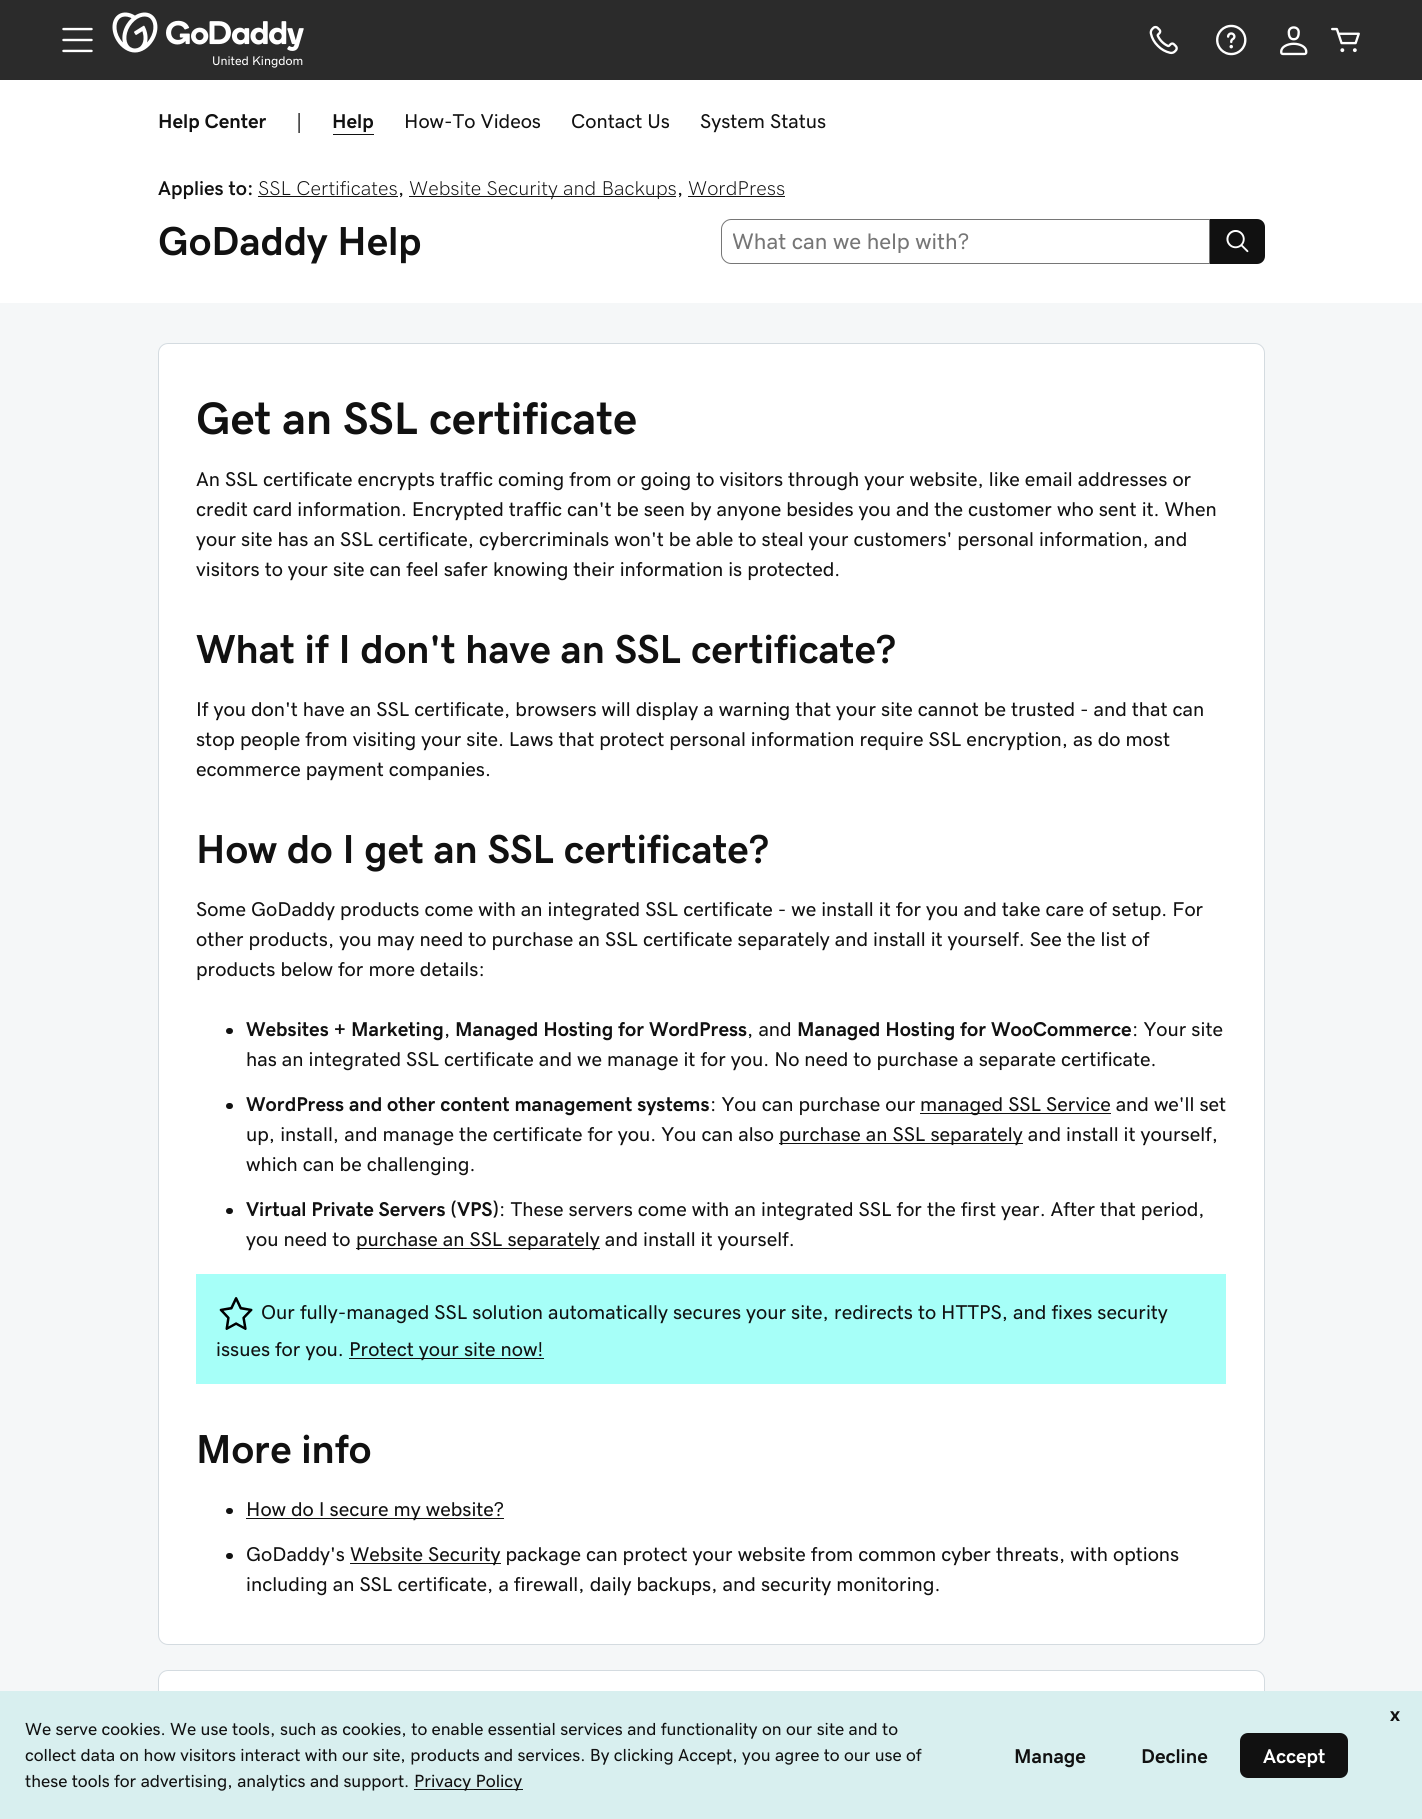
import math
import cairocffi as cairo

surface = cairo.ImageSurface(cairo.FORMAT_RGB24, 1422, 1819)
ctx = cairo.Context(surface)
options = cairo.FontOptions()
options.set_hint_metrics(cairo.HINT_METRICS_OFF)
options.set_hint_style(cairo.HINT_STYLE_NONE)
ctx.set_font_options(options)
ctx.set_miter_limit(4)


def rgb(r, g, b):
    ctx.set_source_rgb(r / 255, g / 255, b / 255)


def face(family, size, italic, bold):
    ctx.select_font_face(family, cairo.FONT_SLANT_ITALIC if italic else cairo.FONT_SLANT_NORMAL, cairo.FONT_WEIGHT_BOLD if bold else cairo.FONT_WEIGHT_NORMAL)
    ctx.set_font_size(size)


def label(x, y, s):
    ctx.move_to(x, y)
    ctx.show_text(s)


def rect(x, y, w, h):
    ctx.rectangle(x, y, w, h)
    ctx.fill()


def rrect(x, y, w, h, r):
    ctx.new_sub_path()
    for i, (u, v) in enumerate([(x + w - r, y + h - r), (x + r, y + h - r), (x + r, y + r), (x + w - r, y + r)]):
        ctx.arc(u, v, r, i * math.pi / 2, (i + 1) * math.pi / 2)
    ctx.close_path()


def image(path, x, y, w, h):
    ctx.save()
    ctx.set_source_surface(cairo.ImageSurface.create_from_png(path), x, y)
    ctx.rectangle(x, y, w, h)
    ctx.fill()
    ctx.restore()


rgb(255, 255, 255)
ctx.paint()
rgb(43, 43, 43)
rect(0, 0, 1422, 80)
image('image0.png', 1149, 25, 29, 30)
image('image1.png', 1216, 24, 31, 32)
image('image2.png', 1280, 26, 28, 30)
image('image3.png', 1331, 27, 29, 26)
image('image4.png', 62, 27, 31, 26)
image('image5.png', 112, 12, 192, 41)
face('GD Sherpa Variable', 12.5, 0, 0)
rgb(255, 255, 255)
label(212, 65, 'United Kingdom')
face('GD Sherpa Variable', 20, 0, 1)
rgb(17, 17, 17)
label(158, 128, 'Help Center')
face('GD Sherpa Variable', 20, 0, 0)
label(296, 128, '|')
face('GD Sherpa Variable', 20, 0, 1)
label(332, 128, 'Help')
rect(333, 134, 41, 1)
face('GD Sherpa Variable', 20, 0, 0)
label(404, 128, 'How-To Videos')
label(571, 128, 'Contact Us')
label(700, 128, 'System Status')
face('GD Sherpa Variable SemiBold', 20, 0, 0)
label(158, 195, 'Applies to:')
face('GD Sherpa Variable ExtraLight', 20, 0, 0)
label(258, 195, 'SSL Certificates')
rect(258, 196, 140, 1)
face('GD Sherpa Variable', 20, 0, 0)
label(398, 195, ',')
rect(409, 196, 267, 1)
face('GD Sherpa Variable ExtraLight', 20, 0, 0)
label(409, 195, 'Website Security and Backups')
face('GD Sherpa Variable', 20, 0, 0)
label(677, 195, ',')
face('GD Sherpa Variable ExtraLight', 20, 0, 0)
label(688, 195, 'WordPress')
rect(688, 196, 97, 1)
face('GD Sherpa Variable', 40.5, 0, 1)
label(158, 255, 'GoDaddy Help')
ctx.new_path()
ctx.move_to(731, 219.5)
ctx.line_to(1209.5, 219.5)
ctx.line_to(1209.5, 263.5)
ctx.line_to(731, 263.5)
ctx.curve_to(726, 263.5, 721.5, 259, 721.5, 254)
ctx.line_to(721.5, 229)
ctx.curve_to(721.5, 224, 726, 219.5, 731, 219.5)
ctx.close_path()
rgb(118, 118, 118)
ctx.set_line_width(1)
ctx.stroke()
ctx.save()
ctx.rectangle(733, 230, 466, 23)
ctx.clip()
face('GD Sherpa Variable', 22.5, 0, 0)
label(732, 249, 'What can we help with?')
ctx.restore()
rgb(17, 17, 17)
ctx.new_path()
ctx.move_to(1210, 219)
ctx.line_to(1257, 219)
ctx.curve_to(1261.5, 219, 1265, 222.5, 1265, 227)
ctx.line_to(1265, 256)
ctx.curve_to(1265, 260.5, 1261.5, 264, 1257, 264)
ctx.line_to(1210, 264)
ctx.close_path()
ctx.fill()
image('image6.png', 1226, 230, 23, 23)
rgb(245, 247, 248)
rect(0, 303, 1422, 1388)
rgb(255, 255, 255)
rrect(158.5, 343.5, 1106, 1301, 9.5)
ctx.fill_preserve()
rgb(212, 219, 224)
ctx.stroke()
face('GD Sherpa Variable ExtraBold', 45.6, 0, 0)
rgb(17, 17, 17)
label(196, 434, 'Get an SSL certificate')
face('GD Sherpa Variable', 20, 0, 0)
label(196, 486, 'An SSL certificate encrypts traffic coming from or going to visitors through your website, like email addresses or')
label(196, 516, 'credit card information. Encrypted traffic can\'t be seen by anyone besides you and the customer who sent it. When')
label(196, 546, 'your site has an SSL certificate, cybercriminals won\'t be able to steal your customers\' personal information, and')
label(196, 576, 'visitors to your site can feel safer knowing their information is protected.')
face('GD Sherpa Variable', 40.5, 0, 1)
label(196, 663, 'What if I don\'t have an SSL certificate?')
face('GD Sherpa Variable', 20, 0, 0)
label(196, 716, 'If you don\'t have an SSL certificate, browsers will display a warning that your site cannot be trusted - and that can')
label(196, 746, 'stop people from visiting your site. Laws that protect personal information require SSL encryption, as do most')
label(196, 776, 'ecommerce payment companies.')
face('GD Sherpa Variable', 40.5, 0, 1)
label(196, 863, 'How do I get an SSL certificate?')
face('GD Sherpa Variable', 20, 0, 0)
label(196, 916, 'Some GoDaddy products come with an integrated SSL certificate - we install it for you and take care of setup. For')
label(196, 946, 'other products, you may need to purchase an SSL certificate separately and install it yourself. See the list of')
label(196, 976, 'products below for more details:')
rrect(226, 1028, 7, 6, 3)
ctx.fill()
face('GD Sherpa Variable', 20, 0, 1)
label(246, 1036, 'Websites + Marketing')
label(455, 1036, 'Managed Hosting for WordPress')
face('GD Sherpa Variable', 20, 0, 0)
label(747, 1036, ', and')
face('GD Sherpa Variable', 20, 0, 1)
label(797, 1036, 'Managed Hosting for WooCommerce')
face('GD Sherpa Variable', 20, 0, 0)
label(1132, 1036, ': Your site')
label(444, 1036, ',')
label(246, 1066, 'has an integrated SSL certificate and we manage it for you. No need to purchase a separate certificate.')
rrect(226, 1103, 7, 6, 3)
ctx.fill()
face('GD Sherpa Variable', 20, 0, 1)
label(246, 1111, 'WordPress and other content management systems')
face('GD Sherpa Variable', 20, 0, 0)
label(710, 1111, ': You can purchase our')
rect(920, 1113, 191, 1)
label(920, 1111, 'managed SSL Service and we\'ll set')
label(246, 1141, 'up, install, and manage the certificate for you. You can also')
rect(779, 1143, 244, 1)
label(779, 1141, 'purchase an SSL separately and install it yourself,')
label(246, 1171, 'which can be challenging.')
rrect(226, 1208, 7, 6, 3)
ctx.fill()
face('GD Sherpa Variable', 20, 0, 1)
label(246, 1216, 'Virtual Private Servers (VPS)')
face('GD Sherpa Variable', 20, 0, 0)
label(499, 1216, ': These servers come with an integrated SSL for the first year. After that period,')
label(246, 1246, 'you need to')
rect(356, 1248, 244, 1)
label(356, 1246, 'purchase an SSL separately and install it yourself.')
rgb(166, 255, 248)
rect(196, 1274, 1030, 110)
image('image7.png', 219, 1297, 34, 33)
rgb(17, 17, 17)
label(261, 1319, 'Our fully-managed SSL solution automatically secures your site, redirects to HTTPS, and fixes security')
label(216, 1356, 'issues for you.')
rect(349, 1358, 195, 1)
label(349, 1356, 'Protect your site now!')
face('GD Sherpa Variable', 40.5, 0, 1)
label(196, 1463, 'More info')
rrect(226, 1508, 7, 6, 3)
ctx.fill()
rect(246, 1518, 258, 1)
face('GD Sherpa Variable', 20, 0, 0)
label(246, 1516, 'How do I secure my website?')
rrect(226, 1553, 7, 6, 3)
ctx.fill()
label(246, 1561, 'GoDaddy\'s')
rect(350, 1563, 151, 1)
label(350, 1561, 'Website Security package can protect your website from common cyber threats, with options')
label(246, 1591, 'including an SSL certificate, a firewall, daily backups, and security monitoring.')
rgb(255, 255, 255)
rrect(158.5, 1670.5, 1106, 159, 9.5)
ctx.fill_preserve()
rgb(212, 219, 224)
ctx.stroke()
rgb(216, 239, 239)
rect(0, 1691, 1422, 128)
face('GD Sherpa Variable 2', 20, 0, 1)
rgb(17, 17, 17)
label(1390, 1721, 'x')
face('GD Sherpa Variable', 17.5, 0, 0)
label(25, 1735, 'We serve cookies. We use tools, such as cookies, to enable essential services and functionality on our site and to')
label(25, 1761, 'collect data on how visitors interact with our site, products and services. By clicking Accept, you agree to our use of')
label(25, 1787, 'these tools for advertising, analytics and support.')
rect(414, 1789, 109, 1)
face('GD Sherpa Variable', 17.75, 0, 0)
label(414, 1787, 'Privacy Policy')
face('GD Sherpa Variable 2', 20, 0, 1)
label(1014, 1763, 'Manage')
label(1141, 1763, 'Decline')
rrect(1240, 1733, 108, 45, 8)
ctx.fill()
rgb(255, 255, 255)
label(1263, 1763, 'Accept')
surface.write_to_png('render.png')
